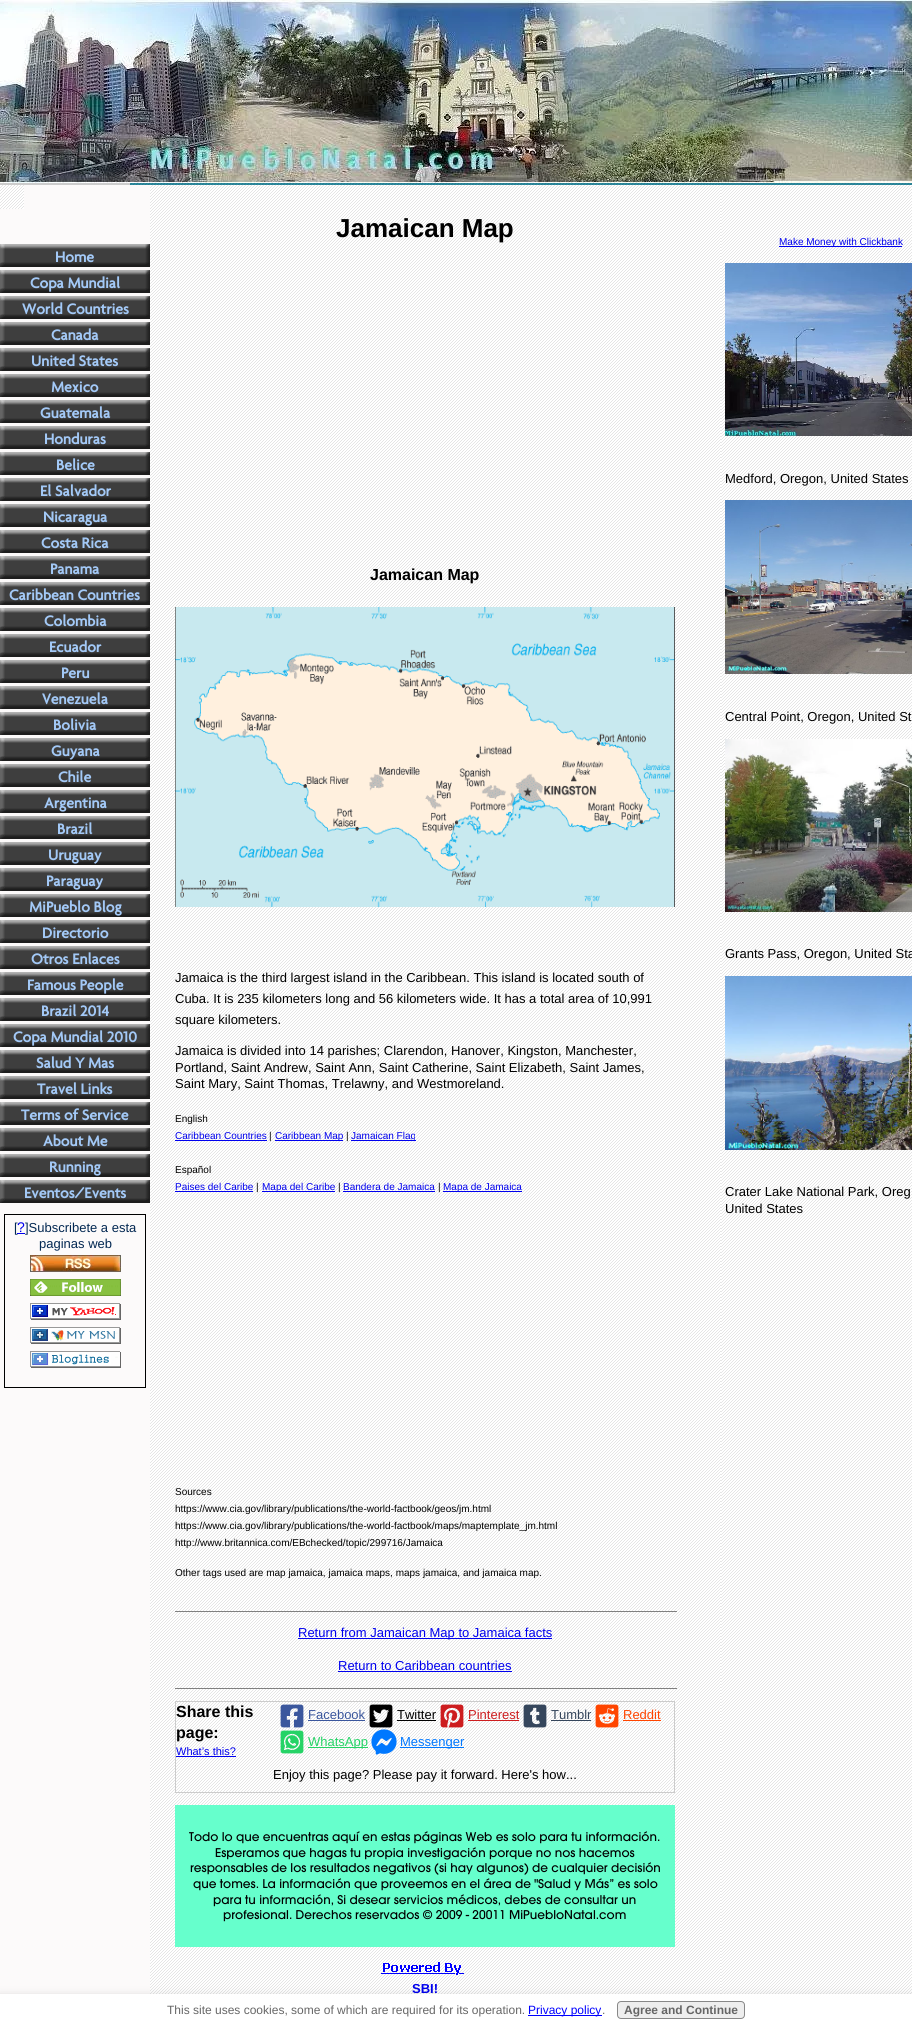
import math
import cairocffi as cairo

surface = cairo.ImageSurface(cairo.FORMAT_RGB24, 912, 2027)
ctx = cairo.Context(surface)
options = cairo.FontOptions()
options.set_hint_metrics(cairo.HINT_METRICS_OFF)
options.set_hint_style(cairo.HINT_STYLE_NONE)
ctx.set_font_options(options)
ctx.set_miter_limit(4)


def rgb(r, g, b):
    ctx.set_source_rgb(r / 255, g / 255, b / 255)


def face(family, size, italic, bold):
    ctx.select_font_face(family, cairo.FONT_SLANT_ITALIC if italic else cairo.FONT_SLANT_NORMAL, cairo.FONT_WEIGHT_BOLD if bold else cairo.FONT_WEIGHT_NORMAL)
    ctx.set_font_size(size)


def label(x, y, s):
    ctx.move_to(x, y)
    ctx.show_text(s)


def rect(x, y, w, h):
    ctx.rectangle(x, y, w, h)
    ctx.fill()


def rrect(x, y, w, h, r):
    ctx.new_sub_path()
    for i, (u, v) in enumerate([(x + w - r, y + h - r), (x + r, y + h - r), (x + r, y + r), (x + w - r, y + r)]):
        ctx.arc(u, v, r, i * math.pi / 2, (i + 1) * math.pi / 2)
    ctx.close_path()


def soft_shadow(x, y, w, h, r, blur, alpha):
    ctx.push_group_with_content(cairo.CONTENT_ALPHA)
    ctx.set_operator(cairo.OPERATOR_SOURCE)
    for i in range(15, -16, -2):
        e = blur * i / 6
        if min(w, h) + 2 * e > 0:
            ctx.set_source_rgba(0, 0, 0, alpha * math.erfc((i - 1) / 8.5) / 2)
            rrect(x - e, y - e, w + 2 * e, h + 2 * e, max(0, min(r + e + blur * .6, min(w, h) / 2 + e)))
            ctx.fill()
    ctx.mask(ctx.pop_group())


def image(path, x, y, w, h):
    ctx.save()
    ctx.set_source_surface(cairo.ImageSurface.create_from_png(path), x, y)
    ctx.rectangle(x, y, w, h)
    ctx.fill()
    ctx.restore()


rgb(255, 255, 255)
ctx.paint()
image('image0.png', 130, 183, 782, 2)
rgb(204, 204, 204)
rect(0, 183, 130, 2)
image('image1.png', 0, 0, 912, 183)
rgb(252, 250, 250)
rect(0, 185, 150, 1809)
image('image2.png', 0, 185, 24, 24)
image('image3.png', 0, 244, 150, 23)
face('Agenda', 15.75, 0, 1)
rgb(163, 201, 247)
label(55, 262, 'Home')
image('image3.png', 0, 270, 150, 23)
label(30, 288, 'Copa Mundial')
image('image3.png', 0, 296, 150, 23)
label(22, 314, 'World Countries')
image('image3.png', 0, 322, 150, 23)
label(51, 340, 'Canada')
image('image3.png', 0, 348, 150, 23)
label(31, 366, 'United States')
image('image3.png', 0, 374, 150, 23)
label(51, 392, 'Mexico')
image('image3.png', 0, 400, 150, 23)
label(40, 418, 'Guatemala')
image('image3.png', 0, 426, 150, 23)
label(44, 444, 'Honduras')
image('image3.png', 0, 452, 150, 23)
label(56, 470, 'Belice')
image('image3.png', 0, 478, 150, 23)
label(40, 496, 'El Salvador')
image('image3.png', 0, 504, 150, 23)
label(43, 522, 'Nicaragua')
image('image3.png', 0, 530, 150, 23)
label(41, 548, 'Costa Rica')
image('image3.png', 0, 556, 150, 23)
label(50, 574, 'Panama')
image('image3.png', 0, 582, 150, 23)
label(9, 600, 'Caribbean Countries')
image('image3.png', 0, 608, 150, 23)
label(44, 626, 'Colombia')
image('image3.png', 0, 634, 150, 23)
label(49, 652, 'Ecuador')
image('image3.png', 0, 660, 150, 23)
label(61, 678, 'Peru')
image('image3.png', 0, 686, 150, 23)
label(42, 704, 'Venezuela')
image('image3.png', 0, 712, 150, 23)
label(53, 730, 'Bolivia')
image('image3.png', 0, 738, 150, 23)
label(51, 756, 'Guyana')
image('image3.png', 0, 764, 150, 23)
label(58, 782, 'Chile')
image('image3.png', 0, 790, 150, 23)
label(44, 808, 'Argentina')
image('image3.png', 0, 816, 150, 23)
label(57, 834, 'Brazil')
image('image3.png', 0, 842, 150, 23)
label(48, 860, 'Uruguay')
image('image3.png', 0, 868, 150, 23)
label(46, 886, 'Paraguay')
image('image3.png', 0, 894, 150, 23)
label(29, 912, 'MiPueblo Blog')
image('image3.png', 0, 920, 150, 23)
label(42, 938, 'Directorio')
image('image3.png', 0, 946, 150, 23)
label(31, 964, 'Otros Enlaces')
image('image3.png', 0, 972, 150, 23)
label(27, 990, 'Famous People')
image('image3.png', 0, 998, 150, 23)
label(41, 1016, 'Brazil 2014')
image('image3.png', 0, 1024, 150, 23)
label(13, 1042, 'Copa Mundial 2010')
image('image3.png', 0, 1050, 150, 23)
label(36, 1068, 'Salud Y Mas')
image('image3.png', 0, 1076, 150, 23)
label(37, 1094, 'Travel Links')
image('image3.png', 0, 1102, 150, 23)
label(21, 1120, 'Terms of Service')
image('image3.png', 0, 1128, 150, 23)
label(43, 1146, 'About Me')
image('image3.png', 0, 1154, 150, 23)
label(49, 1172, 'Running')
image('image3.png', 0, 1180, 150, 23)
label(24, 1198, 'Eventos/Events')
ctx.rectangle(4.5, 1214.5, 141, 173)
rgb(0, 0, 0)
ctx.set_line_width(1)
ctx.stroke()
face('Liberation Sans', 13, 0, 0)
rgb(3, 40, 82)
label(14, 1232, '[')
face('Liberation Sans', 14, 0, 0)
rgb(0, 0, 238)
label(17, 1232, '?')
rect(17, 1233, 8, 1)
face('Liberation Sans', 13, 0, 0)
rgb(3, 40, 82)
label(25, 1232, ']Subscribete a esta')
label(39, 1248, 'paginas web')
image('image4.png', 30, 1255, 91, 17)
image('image5.png', 30, 1279, 91, 17)
image('image6.png', 30, 1303, 91, 17)
image('image7.png', 30, 1327, 91, 17)
image('image8.png', 30, 1351, 91, 17)
image('image9.png', 150, 185, 571, 1809)
face('Liberation Sans', 26, 0, 1)
rgb(0, 0, 0)
label(336, 237, 'Jamaican Map')
face('Liberation Sans', 16, 0, 1)
label(370, 580, 'Jamaican Map')
image('image10.png', 175, 607, 500, 300)
face('Liberation Sans', 13, 0, 0)
label(175, 982, 'Jamaica is the third largest island in the Caribbean. This island is located south of')
label(175, 1003, 'Cuba. It is 235 kilometers long and 56 kilometers wide. It has a total area of 10,991')
label(175, 1024, 'square kilometers.')
label(175, 1055, 'Jamaica is divided into 14 parishes; Clarendon, Hanover, Kingston, Manchester,')
label(175, 1072, 'Portland, Saint Andrew, Saint Ann, Saint Catherine, Saint Elizabeth, Saint James,')
label(175, 1088, 'Saint Mary, Saint Thomas, Trelawny, and Westmoreland.')
face('Liberation Sans', 10, 0, 0)
label(175, 1122, 'English')
rgb(0, 0, 238)
label(175, 1139, 'Caribbean Countries')
rect(175, 1140, 92, 1)
rgb(0, 0, 0)
label(269, 1139, '|')
rgb(0, 0, 238)
rect(275, 1140, 68, 1)
label(275, 1139, 'Caribbean Map')
rgb(0, 0, 0)
label(346, 1139, '|')
rgb(0, 0, 238)
rect(351, 1140, 65, 1)
label(351, 1139, 'Jamaican Flag')
rgb(0, 0, 0)
label(175, 1173, 'Español')
rgb(0, 0, 238)
label(175, 1190, 'Paises del Caribe')
rect(175, 1191, 78, 1)
rgb(0, 0, 0)
label(256, 1190, '|')
rgb(0, 0, 238)
rect(262, 1191, 73, 1)
label(262, 1190, 'Mapa del Caribe')
rgb(0, 0, 0)
label(338, 1190, '|')
rgb(0, 0, 238)
label(343, 1190, 'Bandera de Jamaica')
rect(343, 1191, 92, 1)
rgb(0, 0, 0)
label(438, 1190, '|')
rgb(0, 0, 238)
rect(443, 1191, 79, 1)
label(443, 1190, 'Mapa de Jamaica')
rgb(0, 0, 0)
label(175, 1495, 'Sources')
label(175, 1512, 'https://www.cia.gov/library/publications/the-world-factbook/geos/jm.html')
label(175, 1529, 'https://www.cia.gov/library/publications/the-world-factbook/maps/maptemplate_jm.html')
label(175, 1546, 'http://www.britannica.com/EBchecked/topic/299716/Jamaica')
label(175, 1576, 'Other tags used are map jamaica, jamaica maps, maps jamaica, and jamaica map.')
rgb(128, 128, 128)
rect(175, 1611, 502, 1)
rgb(0, 0, 238)
rect(298, 1638, 254, 1)
face('Liberation Sans', 13, 0, 0)
label(298, 1637, 'Return from Jamaican Map to Jamaica facts')
label(338, 1670, 'Return to Caribbean countries')
rect(338, 1671, 174, 1)
rgb(128, 128, 128)
rect(175, 1688, 502, 1)
ctx.rectangle(175.5, 1701.5, 499, 91)
rgb(204, 204, 204)
ctx.stroke()
face('Liberation Sans', 16, 0, 1)
rgb(0, 0, 0)
label(176, 1717, 'Share this')
label(176, 1738, 'page:')
face('Liberation Sans', 11, 0, 0)
rgb(0, 0, 238)
label(176, 1755, 'What’s this?')
rect(176, 1756, 60, 1)
image('image11.png', 280, 1704, 24, 24)
face('Liberation Sans', 13, 0, 0)
rgb(59, 87, 157)
label(308, 1719, 'Facebook')
rect(308, 1720, 57, 1)
image('image12.png', 369, 1704, 24, 24)
rgb(0, 0, 0)
label(397, 1719, 'Twitter')
rect(397, 1720, 39, 1)
image('image13.png', 440, 1704, 24, 24)
rgb(205, 29, 31)
label(468, 1719, 'Pinterest')
rect(468, 1720, 51, 1)
image('image14.png', 523, 1704, 24, 24)
rgb(53, 70, 92)
label(551, 1719, 'Tumblr')
rect(551, 1720, 40, 1)
image('image15.png', 595, 1704, 24, 24)
rgb(255, 69, 0)
label(623, 1719, 'Reddit')
rect(623, 1720, 38, 1)
image('image16.png', 280, 1730, 24, 24)
rgb(37, 211, 102)
rect(308, 1747, 60, 1)
label(308, 1746, 'WhatsApp')
image('image17.png', 371, 1729, 26, 26)
rgb(0, 120, 255)
rect(400, 1747, 64, 1)
label(400, 1746, 'Messenger')
rgb(0, 0, 0)
label(273, 1779, 'Enjoy this page? Please pay it forward. Here\'s how...')
rgb(102, 255, 204)
rect(175, 1805, 500, 142)
face('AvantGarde', 12, 0, 0)
rgb(0, 0, 0)
label(189, 1841, 'Todo lo que encuentras aquí en estas páginas Web es solo para tu información.')
label(215, 1857, 'Esperamos que hagas tu propia investigación porque no nos hacemos')
label(190, 1872, 'responsables de los resultados negativos (si hay algunos) de cualquier decisión')
label(193, 1888, 'que tomes. La información que proveemos en el área de "Salud y Más” es solo')
label(213, 1904, 'para tu información, Si desear servicios médicos, debes de consultar un')
label(223, 1919, 'profesional. Derechos reservados © 2009 - 20011 MiPuebloNatal.com')
image('image18.png', 381, 1962, 83, 13)
face('Liberation Sans', 13, 0, 1)
rgb(0, 0, 238)
label(412, 1993, 'SBI!')
image('image19.png', 721, 185, 191, 1809)
rect(779, 246, 123, 1)
face('Liberation Sans', 10, 0, 0)
label(779, 245, 'Make Money with Clickbank')
image('image20.png', 725, 263, 187, 173)
face('Liberation Sans', 13, 0, 0)
rgb(0, 0, 0)
label(725, 483, 'Medford, Oregon, United States')
image('image21.png', 725, 500, 187, 174)
label(725, 721, 'Central Point, Oregon, United St')
image('image22.png', 725, 739, 187, 173)
label(725, 958, 'Grants Pass, Oregon, United Sta')
image('image23.png', 725, 976, 187, 174)
label(725, 1196, 'Crater Lake National Park, Oreg')
label(725, 1213, 'United States')
rgb(0, 0, 0)
soft_shadow(-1, 1997, 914, 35, 0, 5, 0.2)
rgb(255, 255, 255)
rect(0, 1994, 912, 33)
face('Liberation Sans', 12, 0, 0)
rgb(102, 102, 102)
label(167, 2014, 'This site uses cookies, some of which are required for its operation.')
rgb(0, 0, 255)
rect(528, 2015, 74, 1)
label(528, 2014, 'Privacy policy')
rgb(102, 102, 102)
label(602, 2014, '.')
rgb(238, 238, 238)
rrect(617.5, 2001.5, 127, 17, 3.5)
ctx.fill_preserve()
rgb(136, 136, 136)
ctx.stroke()
face('Liberation Sans', 12, 0, 1)
rgb(102, 102, 102)
label(624, 2014, 'Agree and Continue')
surface.write_to_png('render.png')
